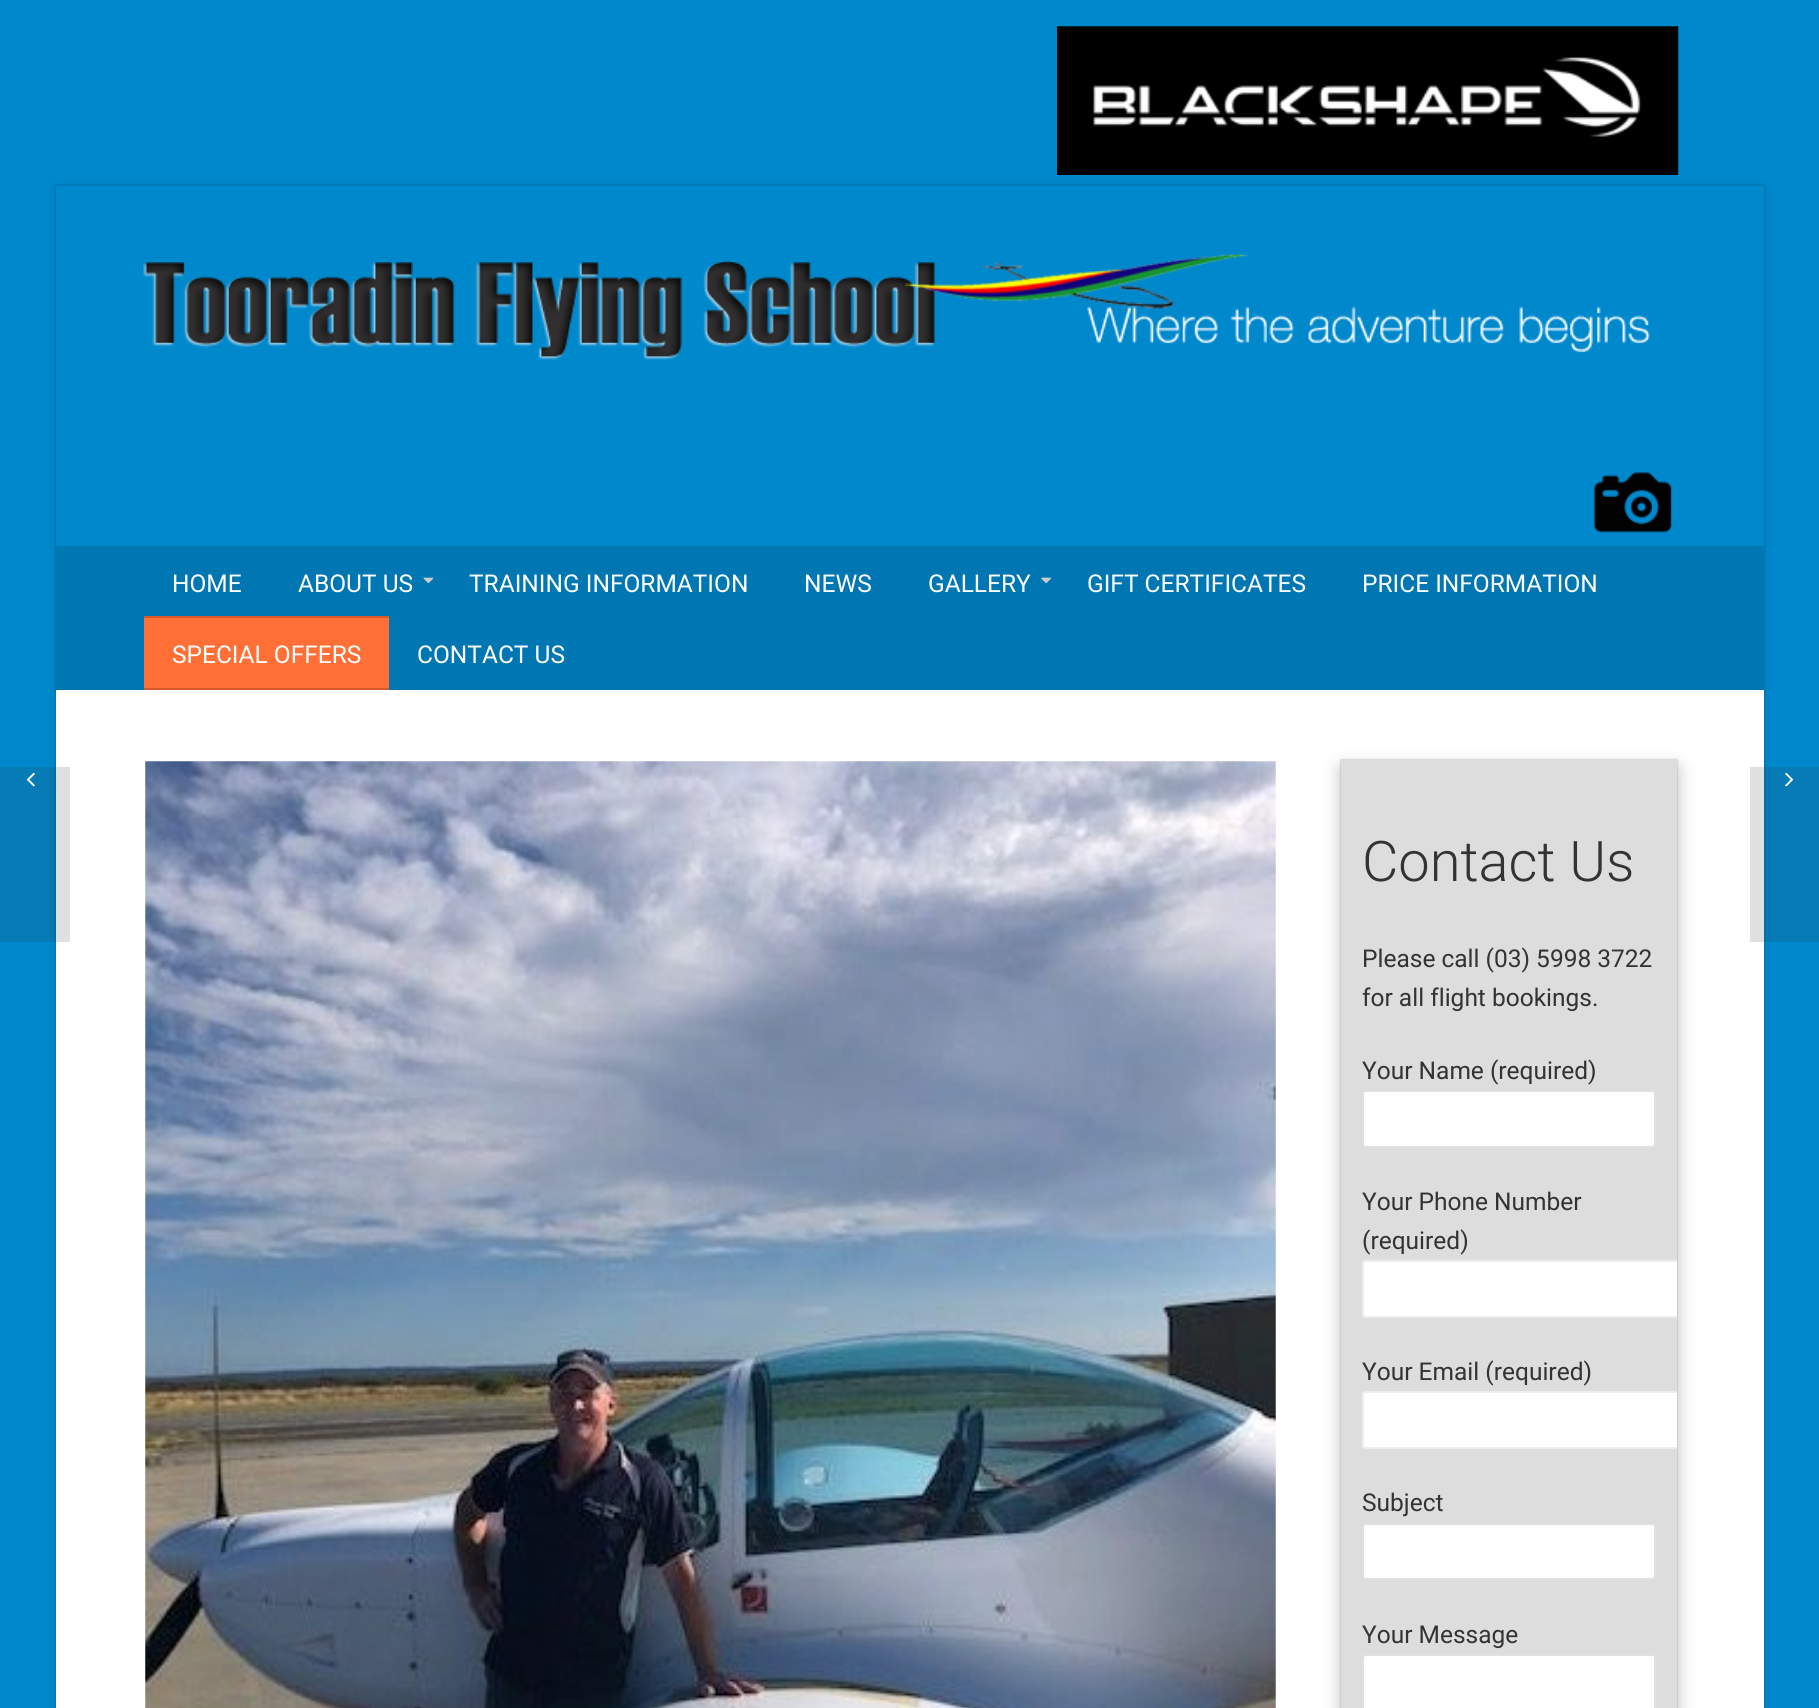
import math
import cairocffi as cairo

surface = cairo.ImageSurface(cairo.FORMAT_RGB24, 1819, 1708)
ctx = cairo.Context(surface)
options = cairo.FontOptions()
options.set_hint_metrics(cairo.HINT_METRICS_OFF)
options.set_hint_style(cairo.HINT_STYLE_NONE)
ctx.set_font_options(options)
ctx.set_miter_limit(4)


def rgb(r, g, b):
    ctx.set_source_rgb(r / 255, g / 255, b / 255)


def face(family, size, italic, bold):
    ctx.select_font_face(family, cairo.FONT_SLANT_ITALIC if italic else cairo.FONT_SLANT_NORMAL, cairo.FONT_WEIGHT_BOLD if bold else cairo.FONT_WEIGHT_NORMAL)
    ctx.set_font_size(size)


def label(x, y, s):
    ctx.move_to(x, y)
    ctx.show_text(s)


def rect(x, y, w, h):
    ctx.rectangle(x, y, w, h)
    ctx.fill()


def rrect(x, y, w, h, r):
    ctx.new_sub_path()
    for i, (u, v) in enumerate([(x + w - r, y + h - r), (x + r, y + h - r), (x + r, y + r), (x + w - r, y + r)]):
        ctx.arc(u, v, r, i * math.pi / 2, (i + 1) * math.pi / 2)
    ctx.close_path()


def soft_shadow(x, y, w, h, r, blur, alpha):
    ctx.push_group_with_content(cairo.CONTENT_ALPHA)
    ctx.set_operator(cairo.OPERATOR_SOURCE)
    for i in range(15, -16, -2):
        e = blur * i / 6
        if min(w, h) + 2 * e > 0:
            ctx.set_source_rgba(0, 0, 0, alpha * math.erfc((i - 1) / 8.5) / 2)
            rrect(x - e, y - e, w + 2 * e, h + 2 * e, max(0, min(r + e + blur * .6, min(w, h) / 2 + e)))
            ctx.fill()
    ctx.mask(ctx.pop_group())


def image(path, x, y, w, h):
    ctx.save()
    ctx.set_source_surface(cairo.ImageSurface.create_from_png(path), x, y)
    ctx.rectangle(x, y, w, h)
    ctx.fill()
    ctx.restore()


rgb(0, 136, 204)
ctx.paint()
rgb(0, 0, 0)
soft_shadow(54, 184, 1712, 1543, 4, 5, 0.07)
image('image0.png', 1057, 26, 622, 149)
rgb(255, 255, 255)
rect(56, 690, 1708, 1018)
rrect(55, 185, 1710, 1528, 3)
ctx.set_source_rgba(0, 0, 0, 0.07)
ctx.stroke()
rgb(0, 136, 204)
rect(56, 186, 1708, 360)
image('image1.png', 143, 254, 1507, 106)
image('image2.png', 1594, 472, 78, 61)
rgb(0, 119, 179)
rect(56, 546, 1708, 144)
face('Roboto', 24.5, 0, 0)
rgb(255, 255, 255)
label(172, 592, 'HOME')
label(298, 592, 'ABOUT US')
image('image3.png', 423, 577, 11, 7)
label(469, 592, 'TRAINING INFORMATION')
label(804, 592, 'NEWS')
label(928, 592, 'GALLERY')
image('image4.png', 1041, 577, 10, 7)
label(1087, 592, 'GIFT CERTIFICATES')
label(1362, 592, 'PRICE INFORMATION')
rgb(255, 111, 54)
rect(144, 618, 245, 70)
rgb(215, 89, 40)
rect(144, 616, 245, 2)
rect(144, 688, 245, 2)
rgb(255, 255, 255)
label(172, 663, 'SPECIAL OFFERS')
label(417, 663, 'CONTACT US')
ctx.set_source_rgba(0.2, 0.2, 0.2, 0.15)
rect(0, 767, 70, 175)
image('image5.png', 26, 772, 9, 15)
image('image6.png', 145, 761, 1131, 947)
rect(1750, 767, 69, 175)
image('image7.png', 1785, 772, 9, 15)
rgb(0, 0, 0)
soft_shadow(1341, 768, 336, 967, 0, 9, 0.25)
rgb(170, 170, 170)
soft_shadow(1341, 760, 336, 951, 0, 1, 1)
rgb(221, 221, 221)
rect(1341, 760, 336, 948)
face('Roboto Light', 56, 0, 0)
rgb(51, 51, 51)
label(1362, 881, 'Contact Us')
face('Roboto', 24.5, 0, 0)
label(1362, 967, 'Please call (03) 5998 3722')
label(1362, 1006, 'for all flight bookings.')
label(1362, 1079, 'Your Name (required)')
rgb(255, 255, 255)
rrect(1363, 1091, 292, 56, 3)
ctx.fill_preserve()
rgb(224, 224, 224)
ctx.stroke()
rgb(51, 51, 51)
label(1362, 1210, 'Your Phone Number')
label(1362, 1249, '(required)')
rgb(255, 255, 255)
ctx.new_path()
ctx.move_to(1366, 1260)
ctx.line_to(1677, 1260)
ctx.line_to(1677, 1318)
ctx.line_to(1366, 1318)
ctx.curve_to(1364, 1318, 1362, 1316, 1362, 1314)
ctx.line_to(1362, 1264)
ctx.curve_to(1362, 1262, 1364, 1260, 1366, 1260)
ctx.close_path()
ctx.fill()
ctx.save()
ctx.rectangle(1341, 760, 336, 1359)
ctx.clip()
rrect(1363, 1261, 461, 56, 3)
rgb(237, 237, 237)
ctx.stroke()
ctx.restore()
rgb(51, 51, 51)
label(1362, 1380, 'Your Email (required)')
rgb(255, 255, 255)
ctx.new_path()
ctx.move_to(1366, 1391)
ctx.line_to(1677, 1391)
ctx.line_to(1677, 1449)
ctx.line_to(1366, 1449)
ctx.curve_to(1364, 1449, 1362, 1447, 1362, 1445)
ctx.line_to(1362, 1395)
ctx.curve_to(1362, 1393, 1364, 1391, 1366, 1391)
ctx.close_path()
ctx.fill()
ctx.save()
ctx.rectangle(1341, 760, 336, 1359)
ctx.clip()
rrect(1363, 1392, 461, 56, 3)
rgb(237, 237, 237)
ctx.stroke()
ctx.restore()
rgb(51, 51, 51)
label(1362, 1511, 'Subject')
rgb(255, 255, 255)
rrect(1363, 1524, 292, 55, 3)
ctx.fill_preserve()
rgb(224, 224, 224)
ctx.stroke()
rgb(51, 51, 51)
label(1362, 1643, 'Your Message')
rgb(255, 255, 255)
rrect(1363, 1655, 292, 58, 3)
ctx.fill_preserve()
rgb(224, 224, 224)
ctx.stroke()
surface.write_to_png('render.png')
